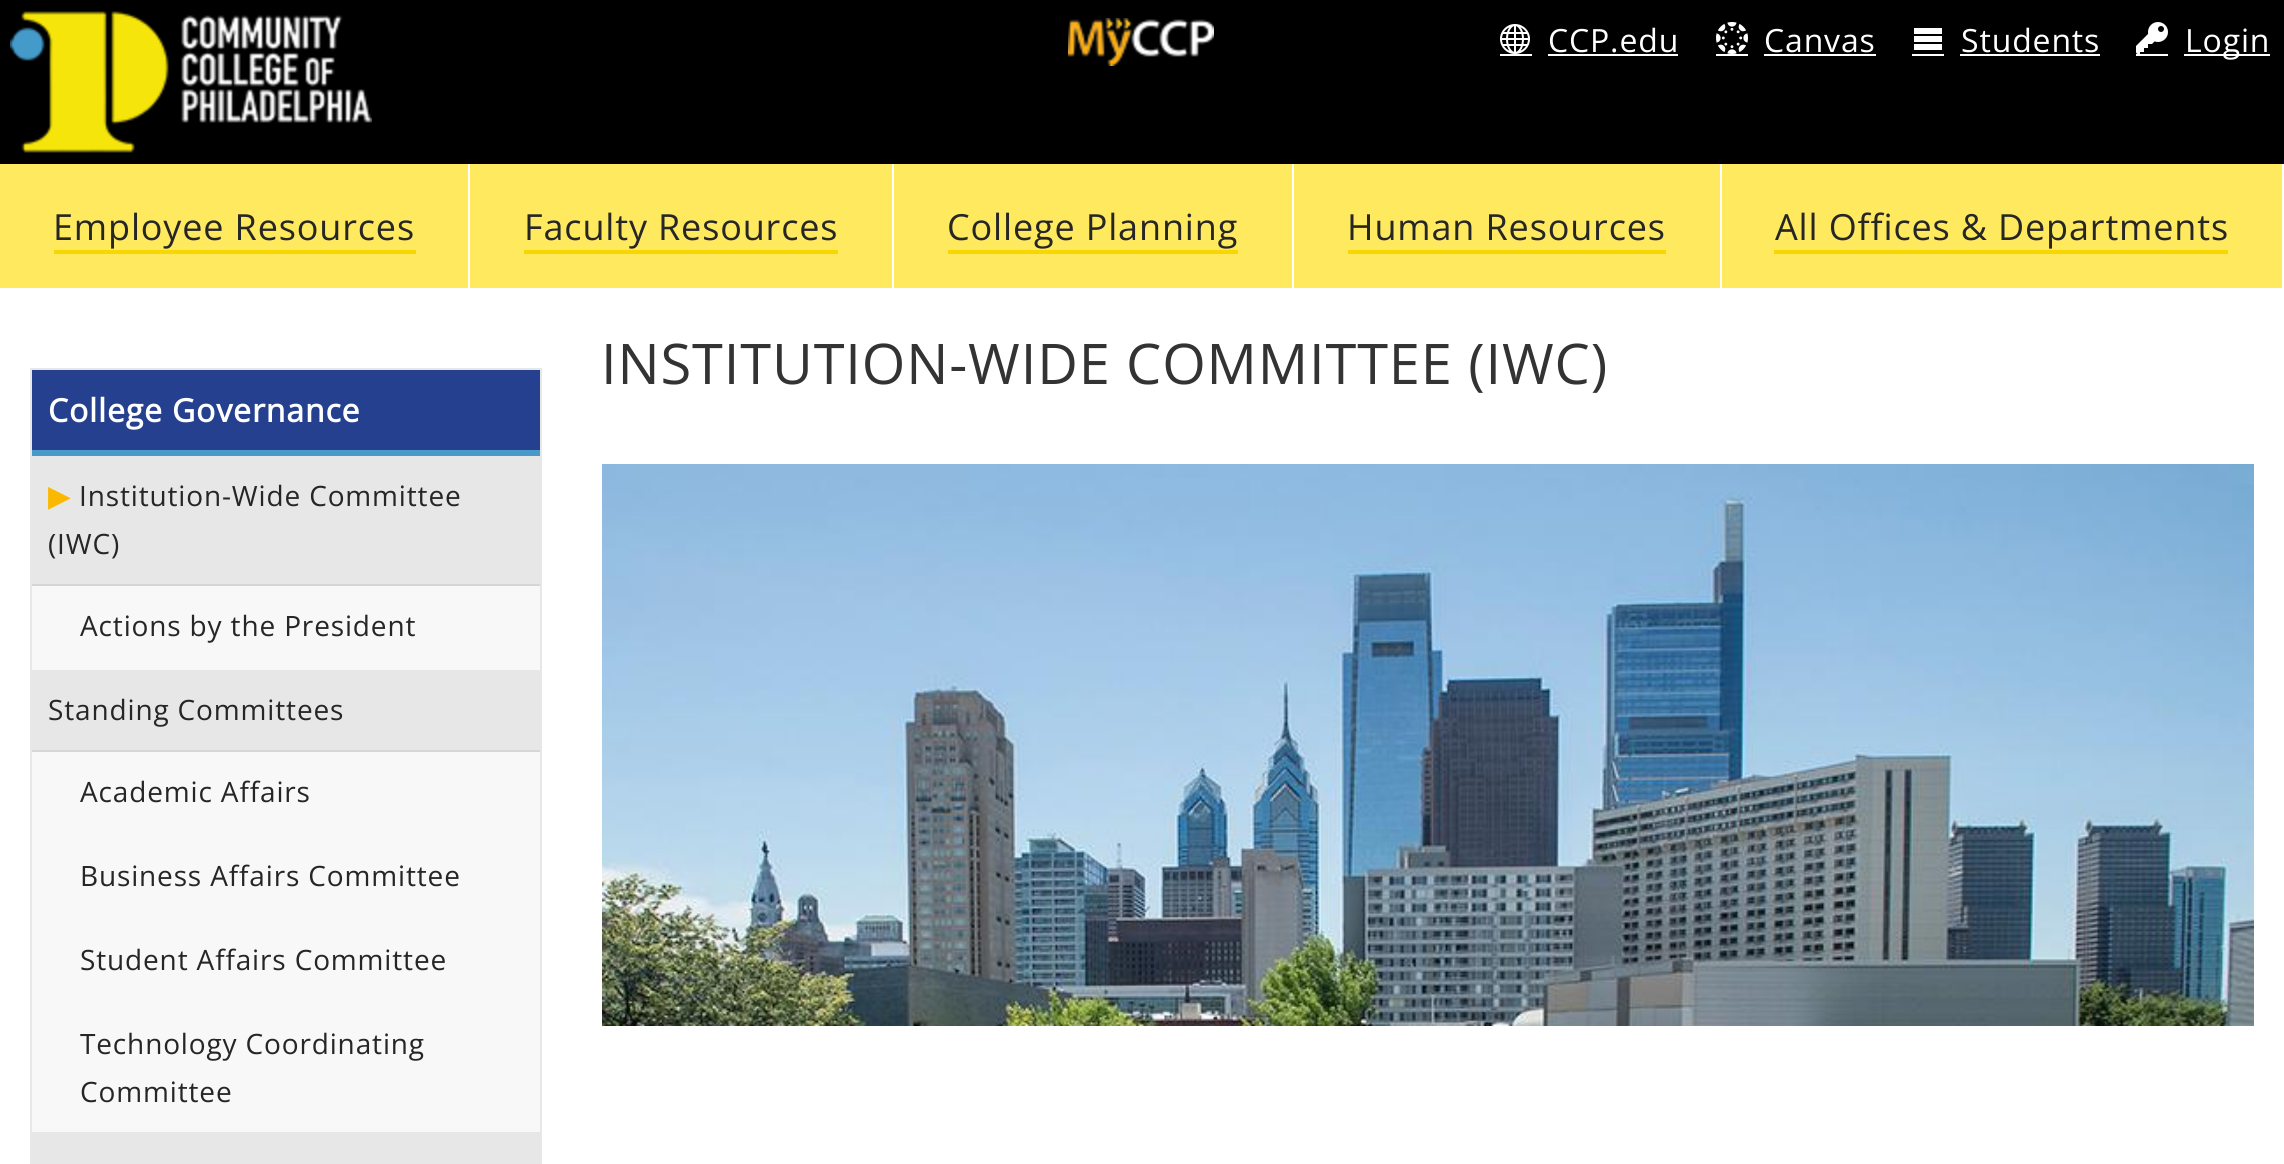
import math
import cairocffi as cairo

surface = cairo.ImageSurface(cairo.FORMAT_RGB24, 2284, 1164)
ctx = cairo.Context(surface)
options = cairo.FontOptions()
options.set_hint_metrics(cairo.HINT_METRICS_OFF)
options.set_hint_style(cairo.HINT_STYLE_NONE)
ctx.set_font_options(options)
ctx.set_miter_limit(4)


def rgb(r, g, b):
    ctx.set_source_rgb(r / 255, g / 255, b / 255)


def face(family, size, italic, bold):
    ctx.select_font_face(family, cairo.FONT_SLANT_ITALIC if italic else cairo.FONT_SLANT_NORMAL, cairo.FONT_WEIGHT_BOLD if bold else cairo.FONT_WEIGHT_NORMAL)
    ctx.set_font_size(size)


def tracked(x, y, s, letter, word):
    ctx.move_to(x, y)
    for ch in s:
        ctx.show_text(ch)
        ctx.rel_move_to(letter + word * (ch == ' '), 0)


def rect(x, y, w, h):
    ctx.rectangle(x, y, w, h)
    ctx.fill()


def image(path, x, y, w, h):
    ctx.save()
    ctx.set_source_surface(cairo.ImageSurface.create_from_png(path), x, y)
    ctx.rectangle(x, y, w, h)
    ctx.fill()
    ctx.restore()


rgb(255, 255, 255)
ctx.paint()
rgb(0, 0, 0)
rect(0, 0, 2284, 164)
image('image0.png', 10, 11, 362, 142)
image('image1.png', 1068, 18, 146, 48)
image('image2.png', 1500, 24, 30, 30)
face('Open Sans', 32, 0, 0)
rgb(255, 255, 255)
tracked(1548, 52, 'CCP.edu', 0.85, 0)
rect(1500, 54, 32, 2)
rect(1548, 54, 130, 2)
image('image3.png', 1716, 22, 32, 32)
tracked(1764, 52, 'Canvas', 0.85, 0)
rect(1716, 54, 32, 2)
rect(1764, 54, 112, 2)
image('image4.png', 1914, 28, 28, 22)
tracked(1961, 52, 'Students', 0.85, 0)
rect(1912, 54, 32, 2)
rect(1960, 54, 140, 2)
image('image5.png', 2136, 22, 32, 32)
rect(2184, 54, 86, 2)
tracked(2185, 52, 'Login', 0.85, 0)
rect(2136, 54, 32, 2)
rgb(255, 233, 95)
rect(0, 164, 2282, 124)
rgb(255, 254, 248)
rect(468, 164, 2, 124)
face('Open Sans', 36, 0, 0)
rgb(38, 38, 38)
tracked(53, 240, 'Employee Resources', 0.85, 0)
rgb(248, 214, 0)
rect(54, 250, 362, 4)
rgb(255, 254, 248)
rect(892, 164, 2, 124)
rgb(38, 38, 38)
tracked(524, 240, 'Faculty Resources', 0.85, 0)
rgb(248, 214, 0)
rect(524, 250, 314, 4)
rgb(255, 254, 248)
rect(1292, 164, 2, 124)
rgb(38, 38, 38)
tracked(947, 240, 'College Planning', 0.85, 0)
rgb(248, 214, 0)
rect(948, 250, 290, 4)
rgb(255, 254, 248)
rect(1720, 164, 2, 124)
rgb(38, 38, 38)
tracked(1347, 240, 'Human Resources', 0.85, 0)
rgb(248, 214, 0)
rect(1348, 250, 318, 4)
rgb(255, 254, 248)
rect(2282, 164, 2, 124)
rgb(38, 38, 38)
tracked(1775, 240, 'All Offices & Departments', 0.85, 0)
rgb(248, 214, 0)
rect(1774, 250, 454, 4)
face('Open Sans', 56, 0, 0)
rgb(51, 51, 51)
tracked(601, 384, 'INSTITUTION-WIDE COMMITTEE (IWC)', 0.85, 0)
image('image6.png', 602, 464, 1652, 562)
ctx.rectangle(31, 369, 510, 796)
rgb(231, 231, 231)
ctx.stroke()
rgb(37, 64, 143)
rect(32, 370, 508, 80)
rgb(72, 155, 201)
rect(32, 450, 508, 6)
face('Open Sans', 32, 0, 1)
rgb(255, 255, 255)
tracked(48, 422, 'College Governance', 0.85, 0)
rgb(231, 231, 231)
rect(32, 456, 508, 128)
face('DejaVu Sans', 28, 0, 1)
rgb(250, 184, 0)
tracked(48, 506, '▶', 0.85, 0)
face('Open Sans', 28, 0, 0)
rgb(38, 38, 38)
tracked(79, 506, 'Institution-Wide Committee', 0.85, 0)
tracked(48, 554, '(IWC)', 0.85, 0)
rgb(214, 214, 214)
rect(32, 584, 508, 2)
rgb(248, 248, 248)
rect(32, 586, 508, 84)
rgb(38, 38, 38)
tracked(80, 636, 'Actions by the President', 0.85, 0)
rgb(231, 231, 231)
rect(32, 670, 508, 80)
rgb(38, 38, 38)
tracked(48, 720, 'Standing Committees', 0.85, 0)
rgb(214, 214, 214)
rect(32, 750, 508, 2)
rgb(248, 248, 248)
rect(32, 752, 508, 380)
rgb(38, 38, 38)
tracked(80, 802, 'Academic Affairs', 0.85, 0)
tracked(80, 886, 'Business Affairs Committee', 0.85, 0)
tracked(80, 970, 'Student Affairs Committee', 0.85, 0)
tracked(80, 1054, 'Technology Coordinating', 0.85, 0)
tracked(80, 1102, 'Committee', 0.85, 0)
rgb(231, 231, 231)
rect(32, 1132, 508, 32)
surface.write_to_png('render.png')
